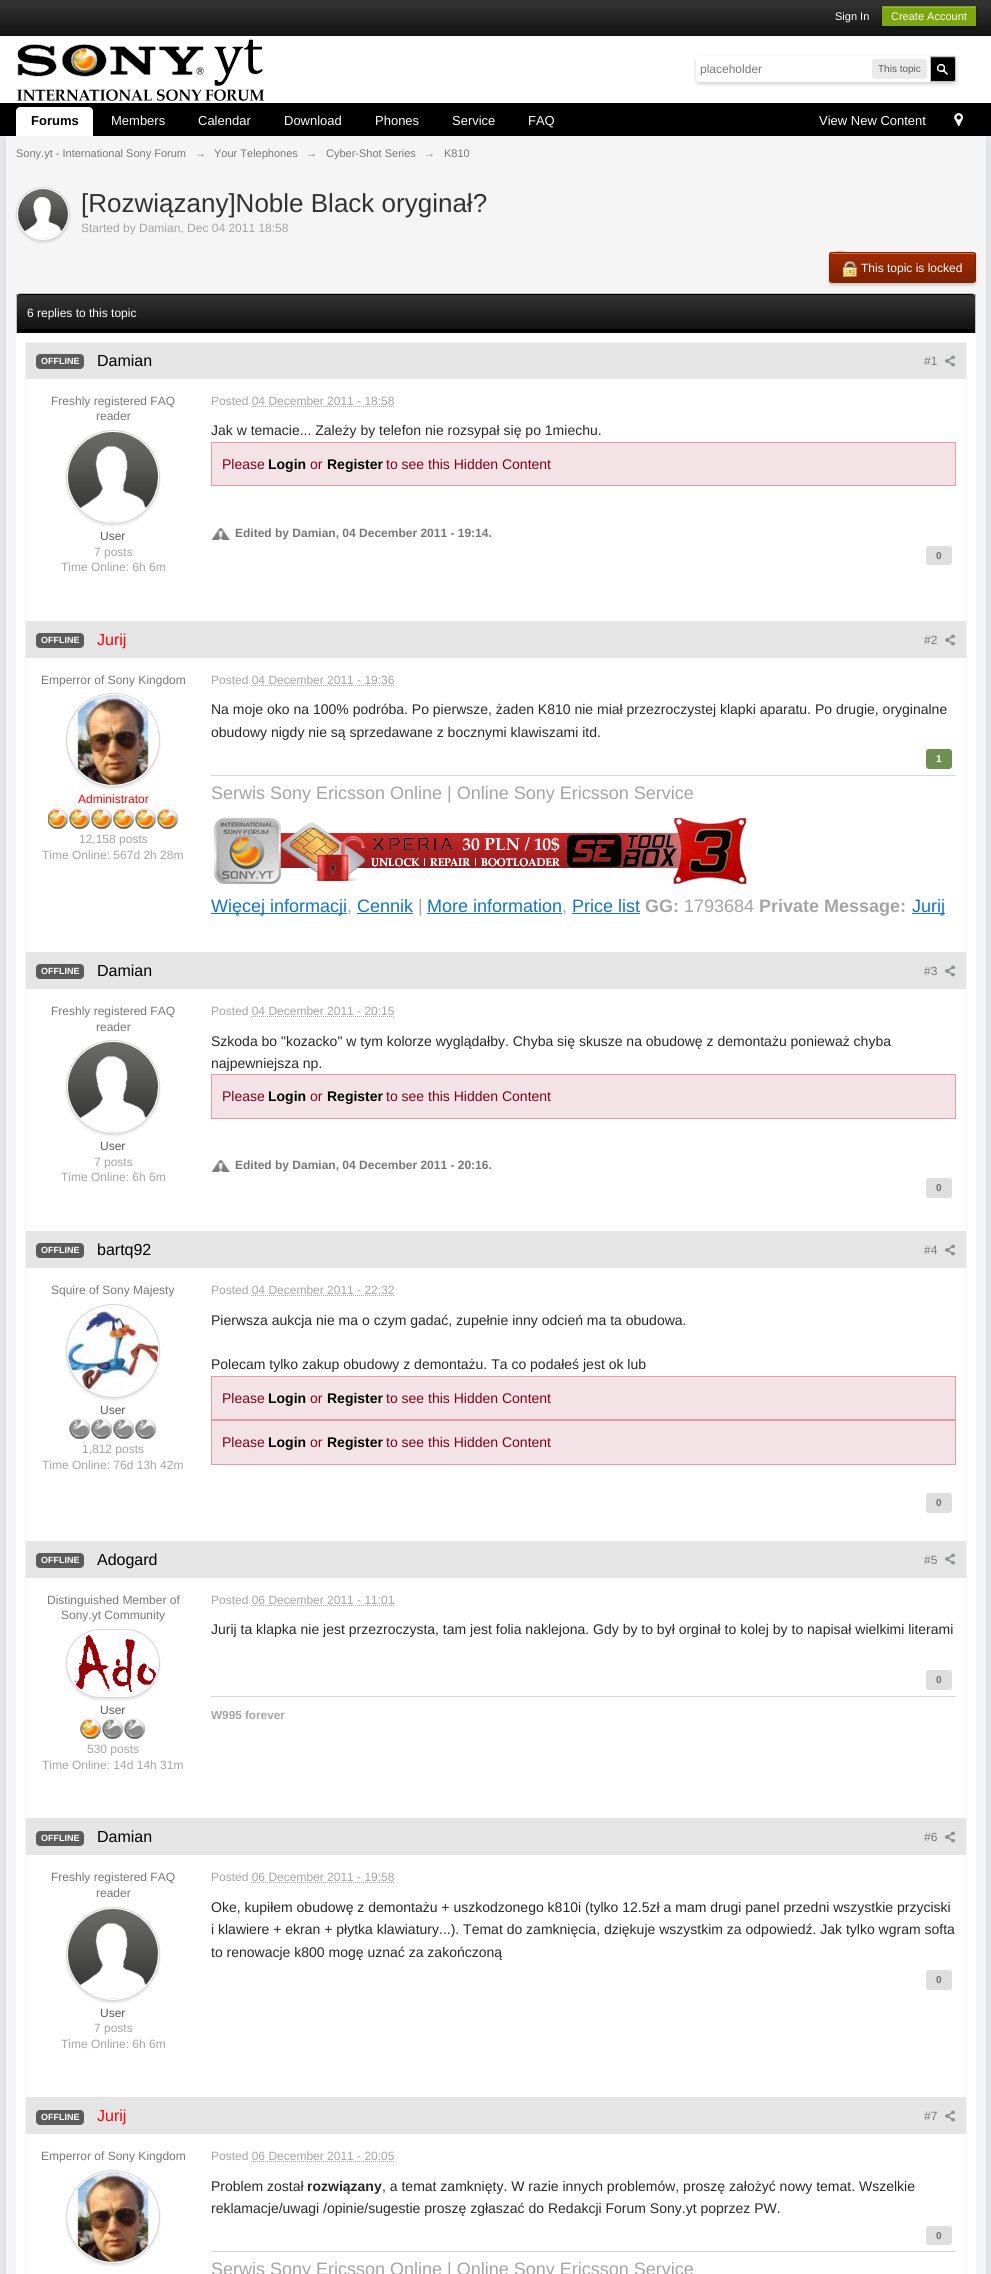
import math
import cairocffi as cairo

surface = cairo.ImageSurface(cairo.FORMAT_RGB24, 991, 2274)
ctx = cairo.Context(surface)
options = cairo.FontOptions()
options.set_hint_metrics(cairo.HINT_METRICS_OFF)
options.set_hint_style(cairo.HINT_STYLE_NONE)
ctx.set_font_options(options)
ctx.set_miter_limit(4)


def rgb(r, g, b):
    ctx.set_source_rgb(r / 255, g / 255, b / 255)


def face(family, size, italic, bold):
    ctx.select_font_face(family, cairo.FONT_SLANT_ITALIC if italic else cairo.FONT_SLANT_NORMAL, cairo.FONT_WEIGHT_BOLD if bold else cairo.FONT_WEIGHT_NORMAL)
    ctx.set_font_size(size)


def label(x, y, s):
    ctx.move_to(x, y)
    ctx.show_text(s)


def rect(x, y, w, h):
    ctx.rectangle(x, y, w, h)
    ctx.fill()


def rrect(x, y, w, h, r):
    ctx.new_sub_path()
    for i, (u, v) in enumerate([(x + w - r, y + h - r), (x + r, y + h - r), (x + r, y + r), (x + w - r, y + r)]):
        ctx.arc(u, v, r, i * math.pi / 2, (i + 1) * math.pi / 2)
    ctx.close_path()


def soft_shadow(x, y, w, h, r, blur, alpha):
    ctx.push_group_with_content(cairo.CONTENT_ALPHA)
    ctx.set_operator(cairo.OPERATOR_SOURCE)
    for i in range(15, -16, -2):
        e = blur * i / 6
        if min(w, h) + 2 * e > 0:
            ctx.set_source_rgba(0, 0, 0, alpha * math.erfc((i - 1) / 8.5) / 2)
            rrect(x - e, y - e, w + 2 * e, h + 2 * e, max(0, min(r + e + blur * .6, min(w, h) / 2 + e)))
            ctx.fill()
    ctx.mask(ctx.pop_group())


def image(path, x, y, w, h):
    ctx.save()
    ctx.set_source_surface(cairo.ImageSurface.create_from_png(path), x, y)
    ctx.rectangle(x, y, w, h)
    ctx.fill()
    ctx.restore()


rgb(233, 234, 237)
ctx.paint()
rgb(50, 50, 50)
rect(0, 0, 991, 8)
image('image0.png', 0, 8, 991, 28)
face('Liberation Sans', 11, 0, 0)
rgb(255, 255, 255)
label(835, 20, 'Sign In')
rgb(0, 0, 0)
soft_shadow(882, 7, 94, 20, 0, 2, 0.4)
rgb(123, 166, 13)
rect(882, 6, 94, 20)
rgb(149, 184, 61)
rect(883, 7, 92, 1)
rgb(255, 255, 255)
label(891, 20, 'Create Account')
rect(0, 36, 991, 67)
image('image1.png', 17, 39, 247, 62)
rgb(0, 0, 0)
soft_shadow(696, 58, 260, 26, 4, 2, 0.2)
rgb(255, 255, 255)
ctx.new_path()
ctx.move_to(699, 56)
ctx.line_to(952, 56)
ctx.curve_to(954, 56, 956, 58, 956, 60)
ctx.line_to(956, 78)
ctx.curve_to(956, 80, 954, 82, 952, 82)
ctx.line_to(699, 82)
ctx.curve_to(697.5, 82, 696, 80.5, 696, 79)
ctx.line_to(696, 59)
ctx.curve_to(696, 57.5, 697.5, 56, 699, 56)
ctx.close_path()
ctx.fill()
face('Liberation Sans', 12, 0, 0)
rgb(119, 119, 119)
label(700, 73, 'placeholder')
rgb(234, 234, 234)
rrect(872, 59, 55, 20, 3)
ctx.fill()
face('Liberation Sans', 10, 0, 0)
rgb(90, 90, 90)
label(878, 72, 'This topic')
rgb(0, 0, 0)
ctx.new_path()
ctx.move_to(930, 56)
ctx.line_to(953, 56)
ctx.curve_to(954.5, 56, 956, 57.5, 956, 59)
ctx.line_to(956, 79)
ctx.curve_to(956, 80.5, 954.5, 82, 953, 82)
ctx.line_to(930, 82)
ctx.close_path()
ctx.fill()
image('image2.png', 937, 64, 11, 11)
rgb(51, 51, 51)
ctx.new_path()
ctx.move_to(931, 58)
ctx.line_to(953, 58)
ctx.curve_to(954, 58, 955, 59, 955, 60)
ctx.line_to(955, 59)
ctx.curve_to(955, 58, 954, 57, 953, 57)
ctx.line_to(931, 57)
ctx.close_path()
ctx.fill()
ctx.new_path()
ctx.move_to(930.5, 56.5)
ctx.line_to(953, 56.5)
ctx.curve_to(954.5, 56.5, 955.5, 57.5, 955.5, 59)
ctx.line_to(955.5, 79)
ctx.curve_to(955.5, 80.5, 954.5, 81.5, 953, 81.5)
ctx.line_to(930.5, 81.5)
ctx.close_path()
rgb(192, 192, 192)
ctx.set_line_width(1)
ctx.stroke()
rgb(0, 0, 0)
rect(0, 103, 991, 33)
rgb(0, 0, 0)
soft_shadow(6, 141, 980, 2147, 0, 4.5, 0.1)
rgb(255, 255, 255)
ctx.new_path()
ctx.move_to(20, 107)
ctx.line_to(89, 107)
ctx.curve_to(91, 107, 93, 109, 93, 111)
ctx.line_to(93, 136)
ctx.line_to(16, 136)
ctx.line_to(16, 111)
ctx.curve_to(16, 109, 18, 107, 20, 107)
ctx.close_path()
ctx.fill()
face('Liberation Sans', 13, 0, 1)
rgb(0, 0, 0)
label(31, 125, 'Forums')
face('Liberation Sans', 13, 0, 0)
rgb(255, 255, 255)
label(111, 125, 'Members')
label(198, 125, 'Calendar')
label(284, 125, 'Download')
label(375, 125, 'Phones')
label(452, 125, 'Service')
label(528, 125, 'FAQ')
label(819, 125, 'View New Content')
image('image3.png', 954, 113, 9, 13)
rgb(245, 245, 245)
rect(6, 136, 980, 2138)
face('Liberation Sans', 11, 0, 0)
rgb(119, 119, 119)
label(16, 157, 'Sony.yt - International Sony Forum')
label(195, 157, '→')
label(214, 157, 'Your Telephones')
label(306, 157, '→')
label(326, 157, 'Cyber-Shot Series')
label(424, 157, '→')
label(444, 157, 'K810')
rgb(0, 0, 0)
soft_shadow(16, 189, 54, 54, 27, 1, 0.1)
rgb(255, 255, 255)
ctx.arc(43, 214, 26.5, 0, 2 * math.pi)
ctx.fill_preserve()
rgb(213, 213, 213)
ctx.stroke()
image('image4.png', 18, 189, 50, 50)
face('Liberation Sans', 26, 0, 0)
rgb(50, 50, 50)
label(81, 212, '[Rozwiązany]Noble Black oryginał?')
face('Liberation Sans', 12, 0, 0)
rgb(164, 164, 164)
label(81, 232, 'Started by Damian, Dec 04 2011 18:58')
rgb(0, 0, 0)
soft_shadow(829, 254, 147, 31, 3, 1.5, 0.2)
rgb(129, 34, 0)
ctx.new_path()
ctx.move_to(832, 253)
ctx.line_to(973, 253)
ctx.curve_to(974, 253, 975, 254, 975, 255)
ctx.line_to(975, 280)
ctx.curve_to(975, 282, 974, 283, 973, 283)
ctx.line_to(832, 283)
ctx.curve_to(831, 283, 830, 282, 830, 280)
ctx.line_to(830, 255)
ctx.curve_to(830, 254, 831, 253, 832, 253)
ctx.close_path()
ctx.fill()
image('image5.png', 829, 253, 147, 28)
rgb(219, 110, 70)
ctx.new_path()
ctx.move_to(832, 254)
ctx.line_to(973, 254)
ctx.curve_to(974, 254, 975, 255, 975, 256)
ctx.curve_to(975, 255, 975, 254, 974, 253)
ctx.line_to(856, 253)
ctx.curve_to(852, 253, 830, 248, 830, 256)
ctx.curve_to(830, 255, 831, 254, 832, 254)
ctx.close_path()
ctx.fill()
rgb(129, 34, 0)
ctx.set_fill_rule(cairo.FILL_RULE_EVEN_ODD)
ctx.new_path()
ctx.move_to(832, 252)
ctx.line_to(973, 252)
ctx.curve_to(975, 252, 976, 253, 976, 255)
ctx.line_to(976, 280)
ctx.curve_to(976, 282, 975, 283, 973, 283)
ctx.line_to(832, 283)
ctx.curve_to(830, 283, 829, 282, 829, 280)
ctx.line_to(829, 255)
ctx.curve_to(829, 253, 830, 252, 832, 252)
ctx.close_path()
ctx.move_to(832, 253)
ctx.line_to(973, 253)
ctx.curve_to(974, 253, 975, 254, 975, 255)
ctx.line_to(975, 280)
ctx.curve_to(975, 282, 974, 283, 973, 283)
ctx.line_to(832, 283)
ctx.curve_to(831, 283, 830, 282, 830, 280)
ctx.line_to(830, 255)
ctx.curve_to(830, 254, 831, 253, 832, 253)
ctx.close_path()
ctx.fill()
image('image6.png', 843, 261, 14, 16)
rgb(255, 255, 255)
label(861, 272, 'This topic is locked')
rgb(0, 0, 0)
rect(17, 329, 958, 4)
image('image7.png', 16, 294, 960, 35)
ctx.set_fill_rule(cairo.FILL_RULE_WINDING)
ctx.new_path()
ctx.move_to(20, 295)
ctx.line_to(972, 295)
ctx.curve_to(974, 295, 975, 296, 975, 298)
ctx.curve_to(975, 296, 974, 294, 972, 294)
ctx.line_to(20, 294)
ctx.curve_to(18, 294, 17, 296, 17, 298)
ctx.curve_to(17, 296, 18, 295, 20, 295)
ctx.close_path()
ctx.fill()
rgb(192, 192, 192)
ctx.set_fill_rule(cairo.FILL_RULE_EVEN_ODD)
ctx.new_path()
ctx.move_to(20, 293)
ctx.line_to(972, 293)
ctx.curve_to(974, 293, 976, 295, 976, 297)
ctx.line_to(976, 333)
ctx.line_to(16, 333)
ctx.line_to(16, 297)
ctx.curve_to(16, 295, 18, 293, 20, 293)
ctx.close_path()
ctx.move_to(20, 294)
ctx.line_to(972, 294)
ctx.curve_to(974, 294, 975, 295, 975, 297)
ctx.line_to(975, 333)
ctx.line_to(17, 333)
ctx.line_to(17, 297)
ctx.curve_to(17, 295, 18, 294, 20, 294)
ctx.close_path()
ctx.fill()
rgb(255, 255, 255)
label(27, 317, '6 replies to this topic')
rect(16, 333, 960, 1941)
ctx.rectangle(25.5, 342.5, 941, 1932)
rgb(245, 245, 245)
ctx.stroke()
rgb(229, 229, 229)
rect(26, 621, 940, 37)
rect(26, 343, 940, 36)
rgb(91, 91, 91)
rrect(36, 354, 48, 15, 4)
ctx.fill()
face('Liberation Sans', 9, 0, 1)
rgb(255, 255, 255)
label(41, 364, 'OFFLINE')
face('Liberation Sans', 16, 0, 0)
rgb(0, 0, 0)
label(97, 366, 'Damian')
face('Liberation Sans', 12, 0, 0)
rgb(119, 119, 119)
label(924, 365, '#1')
image('image8.png', 945, 355, 10, 12)
label(51, 405, 'Freshly registered FAQ')
label(96, 420, 'reader')
rgb(0, 0, 0)
soft_shadow(66, 432, 94, 94, 47, 1, 0.1)
rgb(255, 255, 255)
ctx.arc(113, 477, 46.5, 0, 2 * math.pi)
ctx.fill_preserve()
rgb(213, 213, 213)
ctx.stroke()
image('image9.png', 68, 432, 90, 90)
rgb(90, 90, 90)
label(100, 540, 'User')
rgb(164, 164, 164)
label(94, 556, '7 posts')
label(61, 571, 'Time Online: 6h 6m')
label(211, 405, 'Posted 04 December 2011 - 18:58')
ctx.new_path()
ctx.move_to(251, 406.5)
ctx.line_to(394, 406.5)
ctx.set_dash([1, 1])
ctx.stroke()
face('Liberation Sans', 14, 0, 0)
rgb(40, 40, 40)
label(211, 435, 'Jak w temacie... Zależy by telefon nie rozsypał się po 1miechu.')
rgb(243, 227, 230)
ctx.rectangle(211.5, 442.5, 744, 43)
ctx.fill_preserve()
rgb(229, 153, 170)
ctx.set_dash([])
ctx.stroke()
rgb(128, 0, 28)
label(222, 469, 'Please')
face('Liberation Sans', 14, 0, 1)
rgb(0, 0, 0)
label(268, 469, 'Login')
face('Liberation Sans', 14, 0, 0)
rgb(128, 0, 28)
label(310, 469, 'or')
face('Liberation Sans', 14, 0, 1)
rgb(0, 0, 0)
label(327, 469, 'Register')
face('Liberation Sans', 14, 0, 0)
rgb(128, 0, 28)
label(386, 469, 'to see this Hidden Content')
image('image10.png', 211, 528, 19, 12)
face('Liberation Sans', 12, 0, 1)
rgb(119, 119, 119)
label(235, 537, 'Edited by Damian, 04 December 2011 - 19:14.')
rgb(222, 222, 222)
rrect(926, 546, 26, 19, 3)
ctx.fill()
face('Liberation Sans', 10, 0, 1)
rgb(110, 110, 110)
label(936, 559, '0')
rgb(229, 229, 229)
rect(26, 952, 940, 37)
rgb(91, 91, 91)
rrect(36, 633, 48, 15, 4)
ctx.fill()
face('Liberation Sans', 9, 0, 1)
rgb(255, 255, 255)
label(41, 643, 'OFFLINE')
face('Liberation Sans', 16, 0, 0)
rgb(255, 0, 0)
label(97, 645, 'Jurij')
face('Liberation Sans', 12, 0, 0)
rgb(119, 119, 119)
label(924, 644, '#2')
image('image8.png', 945, 634, 10, 12)
label(41, 684, 'Emperror of Sony Kingdom')
rgb(0, 0, 0)
soft_shadow(66, 695, 94, 94, 47, 1, 0.1)
rgb(255, 255, 255)
ctx.arc(113, 740, 46.5, 0, 2 * math.pi)
ctx.fill_preserve()
rgb(213, 213, 213)
ctx.stroke()
image('image11.png', 68, 695, 87, 90)
rgb(255, 0, 0)
label(78, 803, 'Administrator')
image('image12.png', 48, 808, 130, 21)
rgb(164, 164, 164)
label(79, 843, '12,158 posts')
label(42, 859, 'Time Online: 567d 2h 28m')
label(211, 684, 'Posted 04 December 2011 - 19:36')
ctx.new_path()
ctx.move_to(251, 685.5)
ctx.line_to(394, 685.5)
ctx.set_dash([1, 1])
ctx.stroke()
face('Liberation Sans', 14, 0, 0)
rgb(40, 40, 40)
label(211, 714, 'Na moje oko na 100% podróba. Po pierwsze, żaden K810 nie miał przezroczystej klapki aparatu. Po drugie, oryginalne')
label(211, 737, 'obudowy nigdy nie są sprzedawane z bocznymi klawiszami itd.')
rgb(111, 143, 82)
rrect(926, 749, 26, 20, 3)
ctx.fill()
face('Liberation Sans', 10, 0, 1)
rgb(255, 255, 255)
label(936, 762, '1')
rgb(213, 213, 213)
rect(211, 775, 745, 1)
face('Liberation Sans', 18, 0, 0)
rgb(164, 164, 164)
label(211, 799, 'Serwis Sony Ericsson Online | Online Sony Ericsson Service')
image('image13.png', 214, 818, 536, 66)
rgb(15, 114, 218)
rect(211, 913, 136, 1)
label(211, 912, 'Więcej informacji')
rgb(164, 164, 164)
label(347, 912, ',')
rgb(15, 114, 218)
rect(357, 913, 56, 1)
label(357, 912, 'Cennik')
rgb(164, 164, 164)
label(418, 912, '|')
rgb(15, 114, 218)
label(427, 912, 'More information')
rgb(164, 164, 164)
label(562, 912, ',')
rgb(15, 114, 218)
rect(427, 913, 135, 1)
rect(572, 913, 68, 1)
label(572, 912, 'Price list')
face('Liberation Sans', 18, 0, 1)
rgb(164, 164, 164)
label(645, 912, 'GG:')
face('Liberation Sans', 18, 0, 0)
label(684, 912, '1793684')
face('Liberation Sans', 18, 0, 1)
label(759, 912, 'Private Message:')
rgb(15, 114, 218)
rect(912, 913, 33, 1)
face('Liberation Sans', 18, 0, 0)
label(912, 912, 'Jurij')
rgb(229, 229, 229)
rect(26, 1231, 940, 37)
rgb(91, 91, 91)
rrect(36, 964, 48, 15, 4)
ctx.fill()
face('Liberation Sans', 9, 0, 1)
rgb(255, 255, 255)
label(41, 974, 'OFFLINE')
face('Liberation Sans', 16, 0, 0)
rgb(0, 0, 0)
label(97, 976, 'Damian')
face('Liberation Sans', 12, 0, 0)
rgb(119, 119, 119)
label(924, 975, '#3')
image('image8.png', 945, 965, 10, 12)
label(51, 1015, 'Freshly registered FAQ')
label(96, 1031, 'reader')
rgb(0, 0, 0)
soft_shadow(66, 1042, 94, 94, 47, 1, 0.1)
rgb(255, 255, 255)
ctx.arc(113, 1087, 46.5, 0, 2 * math.pi)
ctx.fill_preserve()
rgb(213, 213, 213)
ctx.set_dash([])
ctx.stroke()
image('image14.png', 68, 1042, 90, 90)
rgb(90, 90, 90)
label(100, 1150, 'User')
rgb(164, 164, 164)
label(94, 1166, '7 posts')
label(61, 1181, 'Time Online: 6h 6m')
label(211, 1015, 'Posted 04 December 2011 - 20:15')
ctx.new_path()
ctx.move_to(251, 1016.5)
ctx.line_to(394, 1016.5)
ctx.set_dash([1, 1])
ctx.stroke()
face('Liberation Sans', 14, 0, 0)
rgb(40, 40, 40)
label(211, 1046, 'Szkoda bo "kozacko" w tym kolorze wyglądałby. Chyba się skusze na obudowę z demontażu ponieważ chyba')
label(211, 1068, 'najpewniejsza np.')
rgb(243, 227, 230)
ctx.rectangle(211.5, 1074.5, 744, 44)
ctx.fill_preserve()
rgb(229, 153, 170)
ctx.set_dash([])
ctx.stroke()
rgb(128, 0, 28)
label(222, 1101, 'Please')
face('Liberation Sans', 14, 0, 1)
rgb(0, 0, 0)
label(268, 1101, 'Login')
face('Liberation Sans', 14, 0, 0)
rgb(128, 0, 28)
label(310, 1101, 'or')
face('Liberation Sans', 14, 0, 1)
rgb(0, 0, 0)
label(327, 1101, 'Register')
face('Liberation Sans', 14, 0, 0)
rgb(128, 0, 28)
label(386, 1101, 'to see this Hidden Content')
image('image10.png', 211, 1160, 19, 12)
face('Liberation Sans', 12, 0, 1)
rgb(119, 119, 119)
label(235, 1169, 'Edited by Damian, 04 December 2011 - 20:16.')
rgb(222, 222, 222)
rrect(926, 1178, 26, 20, 3)
ctx.fill()
face('Liberation Sans', 10, 0, 1)
rgb(110, 110, 110)
label(936, 1191, '0')
rgb(229, 229, 229)
rect(26, 1541, 940, 37)
rgb(91, 91, 91)
rrect(36, 1243, 48, 15, 4)
ctx.fill()
face('Liberation Sans', 9, 0, 1)
rgb(255, 255, 255)
label(41, 1253, 'OFFLINE')
face('Liberation Sans', 16, 0, 0)
rgb(0, 0, 0)
label(97, 1255, 'bartq92')
face('Liberation Sans', 12, 0, 0)
rgb(119, 119, 119)
label(924, 1254, '#4')
image('image8.png', 945, 1244, 10, 12)
label(51, 1294, 'Squire of Sony Majesty')
rgb(0, 0, 0)
soft_shadow(66, 1306, 94, 94, 47, 1, 0.1)
rgb(255, 255, 255)
ctx.arc(113, 1351, 46.5, 0, 2 * math.pi)
ctx.fill_preserve()
rgb(213, 213, 213)
ctx.stroke()
image('image15.png', 68, 1306, 90, 87)
rgb(90, 90, 90)
label(100, 1414, 'User')
image('image16.png', 69, 1418, 87, 21)
rgb(164, 164, 164)
label(82, 1453, '1,812 posts')
label(42, 1469, 'Time Online: 76d 13h 42m')
label(211, 1294, 'Posted 04 December 2011 - 22:32')
ctx.new_path()
ctx.move_to(251, 1295.5)
ctx.line_to(394, 1295.5)
ctx.set_dash([1, 1])
ctx.stroke()
face('Liberation Sans', 14, 0, 0)
rgb(40, 40, 40)
label(211, 1325, 'Pierwsza aukcja nie ma o czym gadać, zupełnie inny odcień ma ta obudowa.')
label(211, 1369, 'Polecam tylko zakup obudowy z demontażu. Ta co podałeś jest ok lub')
rgb(243, 227, 230)
ctx.rectangle(211.5, 1376.5, 744, 43)
ctx.fill_preserve()
rgb(229, 153, 170)
ctx.set_dash([])
ctx.stroke()
rgb(128, 0, 28)
label(222, 1403, 'Please')
face('Liberation Sans', 14, 0, 1)
rgb(0, 0, 0)
label(268, 1403, 'Login')
face('Liberation Sans', 14, 0, 0)
rgb(128, 0, 28)
label(310, 1403, 'or')
face('Liberation Sans', 14, 0, 1)
rgb(0, 0, 0)
label(327, 1403, 'Register')
face('Liberation Sans', 14, 0, 0)
rgb(128, 0, 28)
label(386, 1403, 'to see this Hidden Content')
rgb(243, 227, 230)
ctx.rectangle(211.5, 1420.5, 744, 44)
ctx.fill_preserve()
rgb(229, 153, 170)
ctx.stroke()
rgb(128, 0, 28)
label(222, 1447, 'Please')
face('Liberation Sans', 14, 0, 1)
rgb(0, 0, 0)
label(268, 1447, 'Login')
face('Liberation Sans', 14, 0, 0)
rgb(128, 0, 28)
label(310, 1447, 'or')
face('Liberation Sans', 14, 0, 1)
rgb(0, 0, 0)
label(327, 1447, 'Register')
face('Liberation Sans', 14, 0, 0)
rgb(128, 0, 28)
label(386, 1447, 'to see this Hidden Content')
rgb(222, 222, 222)
rrect(926, 1493, 26, 20, 3)
ctx.fill()
face('Liberation Sans', 10, 0, 1)
rgb(110, 110, 110)
label(936, 1506, '0')
rgb(229, 229, 229)
rect(26, 1818, 940, 37)
rgb(91, 91, 91)
rrect(36, 1553, 48, 15, 4)
ctx.fill()
face('Liberation Sans', 9, 0, 1)
rgb(255, 255, 255)
label(41, 1563, 'OFFLINE')
face('Liberation Sans', 16, 0, 0)
rgb(0, 0, 0)
label(97, 1565, 'Adogard')
face('Liberation Sans', 12, 0, 0)
rgb(119, 119, 119)
label(924, 1564, '#5')
image('image17.png', 945, 1553, 10, 12)
label(47, 1604, 'Distinguished Member of')
label(61, 1619, 'Sony.yt Community')
rgb(0, 0, 0)
soft_shadow(66, 1631, 94, 69, 34.5, 1, 0.1)
rgb(255, 255, 255)
rrect(66.5, 1629.5, 93, 68, 34)
ctx.fill_preserve()
rgb(213, 213, 213)
ctx.stroke()
image('image18.png', 74, 1635, 82, 57)
rgb(90, 90, 90)
label(100, 1714, 'User')
image('image19.png', 80, 1718, 65, 21)
rgb(164, 164, 164)
label(87, 1753, '530 posts')
label(42, 1769, 'Time Online: 14d 14h 31m')
label(211, 1604, 'Posted 06 December 2011 - 11:01')
ctx.new_path()
ctx.move_to(251, 1605.5)
ctx.line_to(394, 1605.5)
ctx.set_dash([1, 1])
ctx.stroke()
face('Liberation Sans', 14, 0, 0)
rgb(40, 40, 40)
label(211, 1634, 'Jurij ta klapka nie jest przezroczysta, tam jest folia naklejona. Gdy by to był orginał to kolej by to napisał wielkimi literami')
rgb(222, 222, 222)
rrect(926, 1670, 26, 20, 3)
ctx.fill()
face('Liberation Sans', 10, 0, 1)
rgb(110, 110, 110)
label(936, 1683, '0')
rgb(213, 213, 213)
rect(211, 1696, 745, 1)
face('Liberation Sans', 11.75, 0, 1)
rgb(164, 164, 164)
label(211, 1719, 'W995 forever')
rgb(229, 229, 229)
rect(26, 2097, 940, 37)
rgb(91, 91, 91)
rrect(36, 1831, 48, 15, 4)
ctx.fill()
face('Liberation Sans', 9, 0, 1)
rgb(255, 255, 255)
label(41, 1841, 'OFFLINE')
face('Liberation Sans', 16, 0, 0)
rgb(0, 0, 0)
label(97, 1842, 'Damian')
face('Liberation Sans', 12, 0, 0)
rgb(119, 119, 119)
label(924, 1841, '#6')
image('image8.png', 945, 1831, 10, 12)
label(51, 1881, 'Freshly registered FAQ')
label(96, 1897, 'reader')
rgb(0, 0, 0)
soft_shadow(66, 1909, 94, 94, 47, 1, 0.1)
rgb(255, 255, 255)
ctx.arc(113, 1954, 46.5, 0, 2 * math.pi)
ctx.fill_preserve()
rgb(213, 213, 213)
ctx.set_dash([])
ctx.stroke()
image('image20.png', 68, 1909, 90, 90)
rgb(90, 90, 90)
label(100, 2017, 'User')
rgb(164, 164, 164)
label(94, 2032, '7 posts')
label(61, 2048, 'Time Online: 6h 6m')
label(211, 1881, 'Posted 06 December 2011 - 19:58')
ctx.new_path()
ctx.move_to(251, 1882.5)
ctx.line_to(394, 1882.5)
ctx.set_dash([1, 1])
ctx.stroke()
face('Liberation Sans', 14, 0, 0)
rgb(40, 40, 40)
label(211, 1912, 'Oke, kupiłem obudowę z demontażu + uszkodzonego k810i (tylko 12.5zł a mam drugi panel przedni wszystkie przyciski')
label(211, 1934, 'i klawiere + ekran + płytka klawiatury...). Temat do zamknięcia, dziękuje wszystkim za odpowiedź. Jak tylko wgram softa')
label(211, 1957, 'to renowacje k800 mogę uznać za zakończoną')
rgb(222, 222, 222)
rrect(926, 1970, 26, 20, 3)
ctx.fill()
face('Liberation Sans', 10, 0, 1)
rgb(110, 110, 110)
label(936, 1983, '0')
rgb(91, 91, 91)
rrect(36, 2110, 48, 15, 4)
ctx.fill()
face('Liberation Sans', 9, 0, 1)
rgb(255, 255, 255)
label(41, 2120, 'OFFLINE')
face('Liberation Sans', 16, 0, 0)
rgb(255, 0, 0)
label(97, 2121, 'Jurij')
face('Liberation Sans', 12, 0, 0)
rgb(119, 119, 119)
label(924, 2120, '#7')
image('image8.png', 945, 2110, 10, 12)
label(41, 2160, 'Emperror of Sony Kingdom')
rgb(0, 0, 0)
soft_shadow(66, 2172, 94, 94, 47, 1, 0.1)
rgb(255, 255, 255)
ctx.arc(113, 2217, 46.5, 0, 2 * math.pi)
ctx.fill_preserve()
rgb(213, 213, 213)
ctx.set_dash([])
ctx.stroke()
image('image21.png', 68, 2172, 87, 90)
rgb(164, 164, 164)
label(211, 2160, 'Posted 06 December 2011 - 20:05')
ctx.new_path()
ctx.move_to(251, 2161.5)
ctx.line_to(394, 2161.5)
ctx.set_dash([1, 1])
ctx.stroke()
face('Liberation Sans', 14, 0, 0)
rgb(40, 40, 40)
label(211, 2191, 'Problem został')
face('Liberation Sans', 14, 0, 1)
label(307, 2191, 'rozwiązany')
face('Liberation Sans', 14, 0, 0)
label(382, 2191, ', a temat zamknięty. W razie innych problemów, proszę założyć nowy temat. Wszelkie')
label(211, 2213, 'reklamacje/uwagi /opinie/sugestie proszę zgłaszać do Redakcji Forum Sony.yt poprzez PW.')
rgb(222, 222, 222)
rrect(926, 2226, 26, 19, 3)
ctx.fill()
face('Liberation Sans', 10, 0, 1)
rgb(110, 110, 110)
label(936, 2239, '0')
rgb(213, 213, 213)
rect(211, 2251, 745, 1)
face('Liberation Sans', 18, 0, 0)
rgb(164, 164, 164)
label(211, 2275, 'Serwis Sony Ericsson Online | Online Sony Ericsson Service')
surface.write_to_png('render.png')
